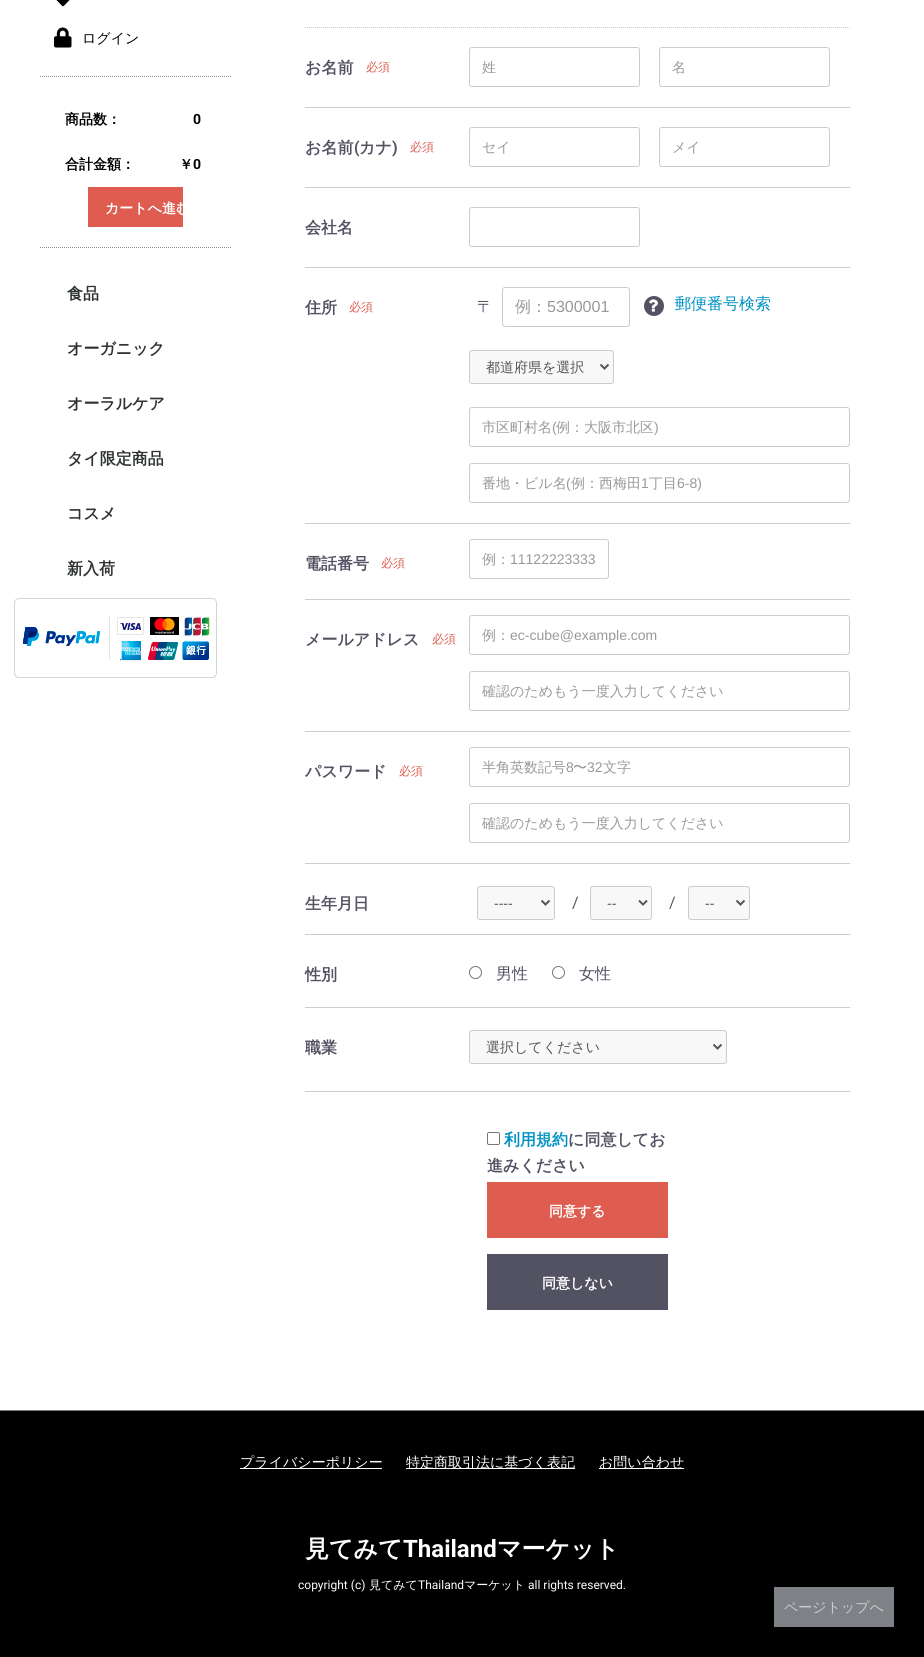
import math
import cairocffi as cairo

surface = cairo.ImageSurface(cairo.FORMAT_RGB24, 924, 1657)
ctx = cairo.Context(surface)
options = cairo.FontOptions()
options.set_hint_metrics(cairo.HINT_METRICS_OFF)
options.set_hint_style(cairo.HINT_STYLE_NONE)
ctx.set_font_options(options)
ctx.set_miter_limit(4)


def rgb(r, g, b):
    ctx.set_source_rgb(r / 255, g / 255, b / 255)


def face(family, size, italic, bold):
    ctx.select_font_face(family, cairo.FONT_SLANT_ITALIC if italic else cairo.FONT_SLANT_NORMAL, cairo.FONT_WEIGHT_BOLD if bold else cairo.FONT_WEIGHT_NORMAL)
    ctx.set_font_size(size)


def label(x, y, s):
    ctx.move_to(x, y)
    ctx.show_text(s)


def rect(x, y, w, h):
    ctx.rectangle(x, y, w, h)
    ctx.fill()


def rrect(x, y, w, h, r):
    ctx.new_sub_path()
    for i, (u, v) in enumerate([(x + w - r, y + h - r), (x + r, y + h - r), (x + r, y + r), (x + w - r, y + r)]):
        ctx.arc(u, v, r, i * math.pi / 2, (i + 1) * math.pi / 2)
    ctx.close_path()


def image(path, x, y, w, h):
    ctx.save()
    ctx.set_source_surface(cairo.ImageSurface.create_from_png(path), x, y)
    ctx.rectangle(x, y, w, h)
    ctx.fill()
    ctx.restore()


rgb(255, 255, 255)
ctx.paint()
image('image0.png', 56, 0, 14, 7)
image('image1.png', 54, 27, 18, 21)
face('WenQuanYi Zen Hei Medium', 14, 0, 0)
rgb(0, 0, 0)
label(82, 43, 'ログイン')
ctx.new_path()
ctx.move_to(40, 76.5)
ctx.line_to(231, 76.5)
rgb(140, 139, 139)
ctx.set_line_width(1)
ctx.set_dash([1, 1])
ctx.stroke()
face('WenQuanYi Zen Hei', 14, 0, 1)
rgb(0, 0, 0)
label(65, 124, '商品数：')
face('Roboto', 14, 0, 1)
label(193, 124, '0')
face('WenQuanYi Zen Hei', 14, 0, 1)
label(65, 169, '合計金額：')
label(179, 169, '￥')
face('Roboto', 14, 0, 1)
label(193, 169, '0')
rgb(222, 93, 80)
rect(88, 187, 95, 40)
face('WenQuanYi Zen Hei', 14, 0, 1)
rgb(255, 255, 255)
label(105, 213, 'カートへ進む')
ctx.new_path()
ctx.move_to(40, 247.5)
ctx.line_to(231, 247.5)
rgb(140, 139, 139)
ctx.stroke()
face('WenQuanYi Zen Hei', 16, 0, 1)
rgb(46, 50, 51)
label(67, 299, '食品')
label(67, 354, 'オーガニック')
label(67, 409, 'オーラルケア')
label(67, 464, 'タイ限定商品')
label(67, 519, 'コスメ')
label(67, 574, '新入荷')
image('image2.png', 14, 598, 203, 80)
ctx.new_path()
ctx.move_to(305, 27.5)
ctx.line_to(850, 27.5)
rgb(204, 204, 204)
ctx.stroke()
rect(305, 107, 545, 1)
rgb(82, 82, 99)
label(305, 73, 'お名前')
face('WenQuanYi Zen Hei Medium', 12, 0, 0)
rgb(222, 93, 80)
label(366, 71, '必須')
rrect(469.5, 47.5, 170, 39, 2.5)
rgb(204, 204, 204)
ctx.set_dash([])
ctx.stroke()
face('WenQuanYi Zen Hei Medium', 14, 0, 0)
rgb(153, 153, 153)
label(482, 72, '姓')
rrect(659.5, 47.5, 170, 39, 2.5)
rgb(204, 204, 204)
ctx.stroke()
rgb(153, 153, 153)
label(672, 72, '名')
rgb(204, 204, 204)
rect(305, 187, 545, 1)
face('WenQuanYi Zen Hei', 16, 0, 1)
rgb(82, 82, 99)
label(305, 153, 'お名前')
face('Roboto', 16, 0, 1)
label(354, 153, '(')
face('WenQuanYi Zen Hei', 16, 0, 1)
label(359, 153, 'カナ')
face('Roboto', 16, 0, 1)
label(392, 153, ')')
face('WenQuanYi Zen Hei Medium', 12, 0, 0)
rgb(222, 93, 80)
label(410, 151, '必須')
rrect(469.5, 127.5, 170, 39, 2.5)
rgb(204, 204, 204)
ctx.stroke()
face('WenQuanYi Zen Hei Medium', 14, 0, 0)
rgb(153, 153, 153)
label(482, 152, 'セイ')
rrect(659.5, 127.5, 170, 39, 2.5)
rgb(204, 204, 204)
ctx.stroke()
rgb(153, 153, 153)
label(672, 152, 'メイ')
rgb(204, 204, 204)
rect(305, 267, 545, 1)
face('WenQuanYi Zen Hei', 16, 0, 1)
rgb(82, 82, 99)
label(305, 233, '会社名')
rrect(469.5, 207.5, 170, 39, 2.5)
rgb(204, 204, 204)
ctx.stroke()
rect(305, 523, 545, 1)
rgb(82, 82, 99)
label(305, 313, '住所')
face('WenQuanYi Zen Hei Medium', 12, 0, 0)
rgb(222, 93, 80)
label(349, 311, '必須')
face('WenQuanYi Zen Hei Medium', 16, 0, 0)
rgb(82, 82, 99)
label(477, 312, '〒')
rrect(502.5, 287.5, 127, 39, 2.5)
rgb(204, 204, 204)
ctx.stroke()
rgb(153, 153, 153)
label(515, 312, '例：')
face('Liberation Sans', 16, 0, 0)
label(547, 312, '5300001')
rgb(82, 82, 99)
ctx.new_path()
ctx.arc(654, 306, 10, 0, 2 * math.pi)
ctx.fill()
image('image3.png', 649, 299, 9, 13)
face('WenQuanYi Zen Hei Medium', 16, 0, 0)
rgb(0, 146, 196)
label(675, 309, '郵便番号検索')
rgb(248, 248, 248)
rrect(469.5, 350.5, 144, 33, 2.5)
ctx.fill_preserve()
rgb(204, 204, 204)
ctx.stroke()
ctx.new_path()
ctx.move_to(600.5, 364.5)
ctx.line_to(604.5, 368.5)
ctx.line_to(608.5, 364.5)
rgb(85, 85, 85)
ctx.set_line_width(2)
ctx.stroke()
face('WenQuanYi Zen Hei Medium', 14, 0, 0)
label(486, 372, '都道府県を選択')
rrect(469.5, 407.5, 380, 39, 2.5)
rgb(204, 204, 204)
ctx.set_line_width(1)
ctx.stroke()
rgb(153, 153, 153)
label(482, 432, '市区町村名')
face('Liberation Sans', 14, 0, 0)
label(552, 432, '(')
face('WenQuanYi Zen Hei Medium', 14, 0, 0)
label(556, 432, '例：大阪市北区')
face('Liberation Sans', 14, 0, 0)
label(654, 432, ')')
rrect(469.5, 463.5, 380, 39, 2.5)
rgb(204, 204, 204)
ctx.stroke()
face('WenQuanYi Zen Hei Medium', 14, 0, 0)
rgb(153, 153, 153)
label(482, 488, '番地・ビル名')
face('Liberation Sans', 14, 0, 0)
label(566, 488, '(')
face('WenQuanYi Zen Hei Medium', 14, 0, 0)
label(571, 488, '例：西梅田')
face('Liberation Sans', 14, 0, 0)
label(641, 488, '1')
face('WenQuanYi Zen Hei Medium', 14, 0, 0)
label(649, 488, '丁目')
face('Liberation Sans', 14, 0, 0)
label(677, 488, '6-8)')
rgb(204, 204, 204)
rect(305, 599, 545, 1)
face('WenQuanYi Zen Hei', 16, 0, 1)
rgb(82, 82, 99)
label(305, 569, '電話番号')
face('WenQuanYi Zen Hei Medium', 12, 0, 0)
rgb(222, 93, 80)
label(381, 567, '必須')
rrect(469.5, 539.5, 139, 39, 2.5)
rgb(204, 204, 204)
ctx.stroke()
face('WenQuanYi Zen Hei Medium', 14, 0, 0)
rgb(153, 153, 153)
label(482, 564, '例：')
face('Liberation Sans', 14, 0, 0)
label(510, 564, '11122223333')
rgb(204, 204, 204)
rect(305, 731, 545, 1)
face('WenQuanYi Zen Hei', 16, 0, 1)
rgb(82, 82, 99)
label(305, 645, 'メールアドレス')
face('WenQuanYi Zen Hei Medium', 12, 0, 0)
rgb(222, 93, 80)
label(432, 643, '必須')
rrect(469.5, 615.5, 380, 39, 2.5)
rgb(204, 204, 204)
ctx.stroke()
face('WenQuanYi Zen Hei Medium', 14, 0, 0)
rgb(153, 153, 153)
label(482, 640, '例：')
face('Liberation Sans', 14, 0, 0)
label(510, 640, 'ec-cube@example.com')
rrect(469.5, 671.5, 380, 39, 2.5)
rgb(204, 204, 204)
ctx.stroke()
face('WenQuanYi Zen Hei Medium', 14, 0, 0)
rgb(153, 153, 153)
label(482, 696, '確認のためもう一度入力してください')
rgb(204, 204, 204)
rect(305, 863, 545, 1)
face('WenQuanYi Zen Hei', 16, 0, 1)
rgb(82, 82, 99)
label(305, 777, 'パスワード')
face('WenQuanYi Zen Hei Medium', 12, 0, 0)
rgb(222, 93, 80)
label(399, 775, '必須')
rrect(469.5, 747.5, 380, 39, 2.5)
rgb(204, 204, 204)
ctx.stroke()
face('WenQuanYi Zen Hei Medium', 14, 0, 0)
rgb(153, 153, 153)
label(482, 772, '半角英数記号')
face('Liberation Sans', 14, 0, 0)
label(566, 772, '8')
face('WenQuanYi Zen Hei Medium', 14, 0, 0)
label(573, 772, '〜')
face('Liberation Sans', 14, 0, 0)
label(587, 772, '32')
face('WenQuanYi Zen Hei Medium', 14, 0, 0)
label(603, 772, '文字')
rrect(469.5, 803.5, 380, 39, 2.5)
rgb(204, 204, 204)
ctx.stroke()
rgb(153, 153, 153)
label(482, 828, '確認のためもう一度入力してください')
rgb(204, 204, 204)
rect(305, 934, 545, 1)
face('WenQuanYi Zen Hei', 16, 0, 1)
rgb(82, 82, 99)
label(305, 909, '生年月日')
rgb(248, 248, 248)
rrect(477.5, 886.5, 77, 33, 2.5)
ctx.fill_preserve()
rgb(204, 204, 204)
ctx.stroke()
ctx.new_path()
ctx.move_to(541.5, 900.5)
ctx.line_to(545.5, 904.5)
ctx.line_to(549.5, 900.5)
rgb(85, 85, 85)
ctx.set_line_width(2)
ctx.stroke()
face('Liberation Sans', 14, 0, 0)
label(494, 908, '----')
face('Roboto', 16, 0, 0)
rgb(82, 82, 99)
label(572, 908, '/')
rgb(248, 248, 248)
rrect(590.5, 886.5, 61, 33, 2.5)
ctx.fill_preserve()
rgb(204, 204, 204)
ctx.set_line_width(1)
ctx.stroke()
ctx.new_path()
ctx.move_to(639, 900.5)
ctx.line_to(643, 904.5)
ctx.line_to(647, 900.5)
rgb(85, 85, 85)
ctx.set_line_width(2)
ctx.stroke()
face('Liberation Sans', 14, 0, 0)
label(607, 908, '--')
face('Roboto', 16, 0, 0)
rgb(82, 82, 99)
label(669, 908, '/')
rgb(248, 248, 248)
rrect(688.5, 886.5, 61, 33, 2.5)
ctx.fill_preserve()
rgb(204, 204, 204)
ctx.set_line_width(1)
ctx.stroke()
ctx.new_path()
ctx.move_to(736.5, 900.5)
ctx.line_to(740.5, 904.5)
ctx.line_to(744.5, 900.5)
rgb(85, 85, 85)
ctx.set_line_width(2)
ctx.stroke()
face('Liberation Sans', 14, 0, 0)
label(705, 908, '--')
rgb(204, 204, 204)
rect(305, 1007, 545, 1)
face('WenQuanYi Zen Hei', 16, 0, 1)
rgb(82, 82, 99)
label(305, 980, '性別')
ctx.new_path()
ctx.arc(475.5, 972.5, 6, 0, 2 * math.pi)
rgb(118, 118, 118)
ctx.set_line_width(1)
ctx.stroke()
face('WenQuanYi Zen Hei Medium', 16, 0, 0)
rgb(82, 82, 99)
label(496, 979, '男性')
ctx.new_path()
ctx.arc(558.5, 972.5, 6, 0, 2 * math.pi)
rgb(118, 118, 118)
ctx.stroke()
rgb(82, 82, 99)
label(579, 979, '女性')
rgb(204, 204, 204)
rect(305, 1091, 545, 1)
face('WenQuanYi Zen Hei', 16, 0, 1)
rgb(82, 82, 99)
label(305, 1053, '職業')
rgb(248, 248, 248)
rrect(469.5, 1030.5, 257, 33, 2.5)
ctx.fill_preserve()
rgb(204, 204, 204)
ctx.stroke()
ctx.new_path()
ctx.move_to(713.5, 1044.5)
ctx.line_to(717.5, 1048.5)
ctx.line_to(721.5, 1044.5)
rgb(85, 85, 85)
ctx.set_line_width(2)
ctx.stroke()
face('WenQuanYi Zen Hei Medium', 14, 0, 0)
label(486, 1052, '選択してください')
rrect(487.5, 1132.5, 12, 12, 1.5)
rgb(118, 118, 118)
ctx.set_line_width(1)
ctx.stroke()
face('WenQuanYi Zen Hei', 16, 0, 1)
rgb(0, 146, 196)
label(504, 1145, '利用規約')
rgb(82, 82, 99)
label(568, 1145, 'に同意してお')
label(487, 1171, '進みください')
rgb(222, 93, 80)
rect(487, 1182, 181, 56)
face('WenQuanYi Zen Hei', 14, 0, 1)
rgb(255, 255, 255)
label(549, 1216, '同意する')
rgb(82, 82, 99)
rect(487, 1254, 181, 56)
rgb(255, 255, 255)
label(542, 1288, '同意しない')
rgb(0, 0, 0)
rect(0, 1411, 924, 246)
rgb(125, 125, 125)
rect(0, 1410, 924, 1)
rgb(255, 255, 255)
rect(240, 1468, 142, 1)
face('WenQuanYi Zen Hei Medium', 14, 0, 0)
label(240, 1467, 'プライバシーポリシー')
rect(406, 1468, 169, 1)
label(406, 1467, '特定商取引法に基づく表記')
rect(599, 1468, 85, 1)
label(599, 1467, 'お問い合わせ')
face('WenQuanYi Zen Hei', 24, 0, 1)
label(305, 1557, '見てみて')
face('Roboto', 24, 0, 1)
label(403, 1557, 'Thailand')
face('WenQuanYi Zen Hei', 24, 0, 1)
label(497, 1557, 'マーケット')
face('Roboto', 12, 0, 0)
label(298, 1589, 'copyright (c)')
face('WenQuanYi Zen Hei Medium', 12, 0, 0)
label(369, 1589, '見てみて')
face('Roboto', 12, 0, 0)
label(418, 1589, 'Thailand')
face('WenQuanYi Zen Hei Medium', 12, 0, 0)
label(464, 1589, 'マーケット')
face('Roboto', 12, 0, 0)
label(528, 1589, 'all rights reserved.')
rgb(126, 130, 135)
rect(774, 1587, 120, 40)
face('WenQuanYi Zen Hei Medium', 14, 0, 0)
rgb(204, 204, 204)
label(784, 1612, 'ページトップへ')
surface.write_to_png('render.png')
